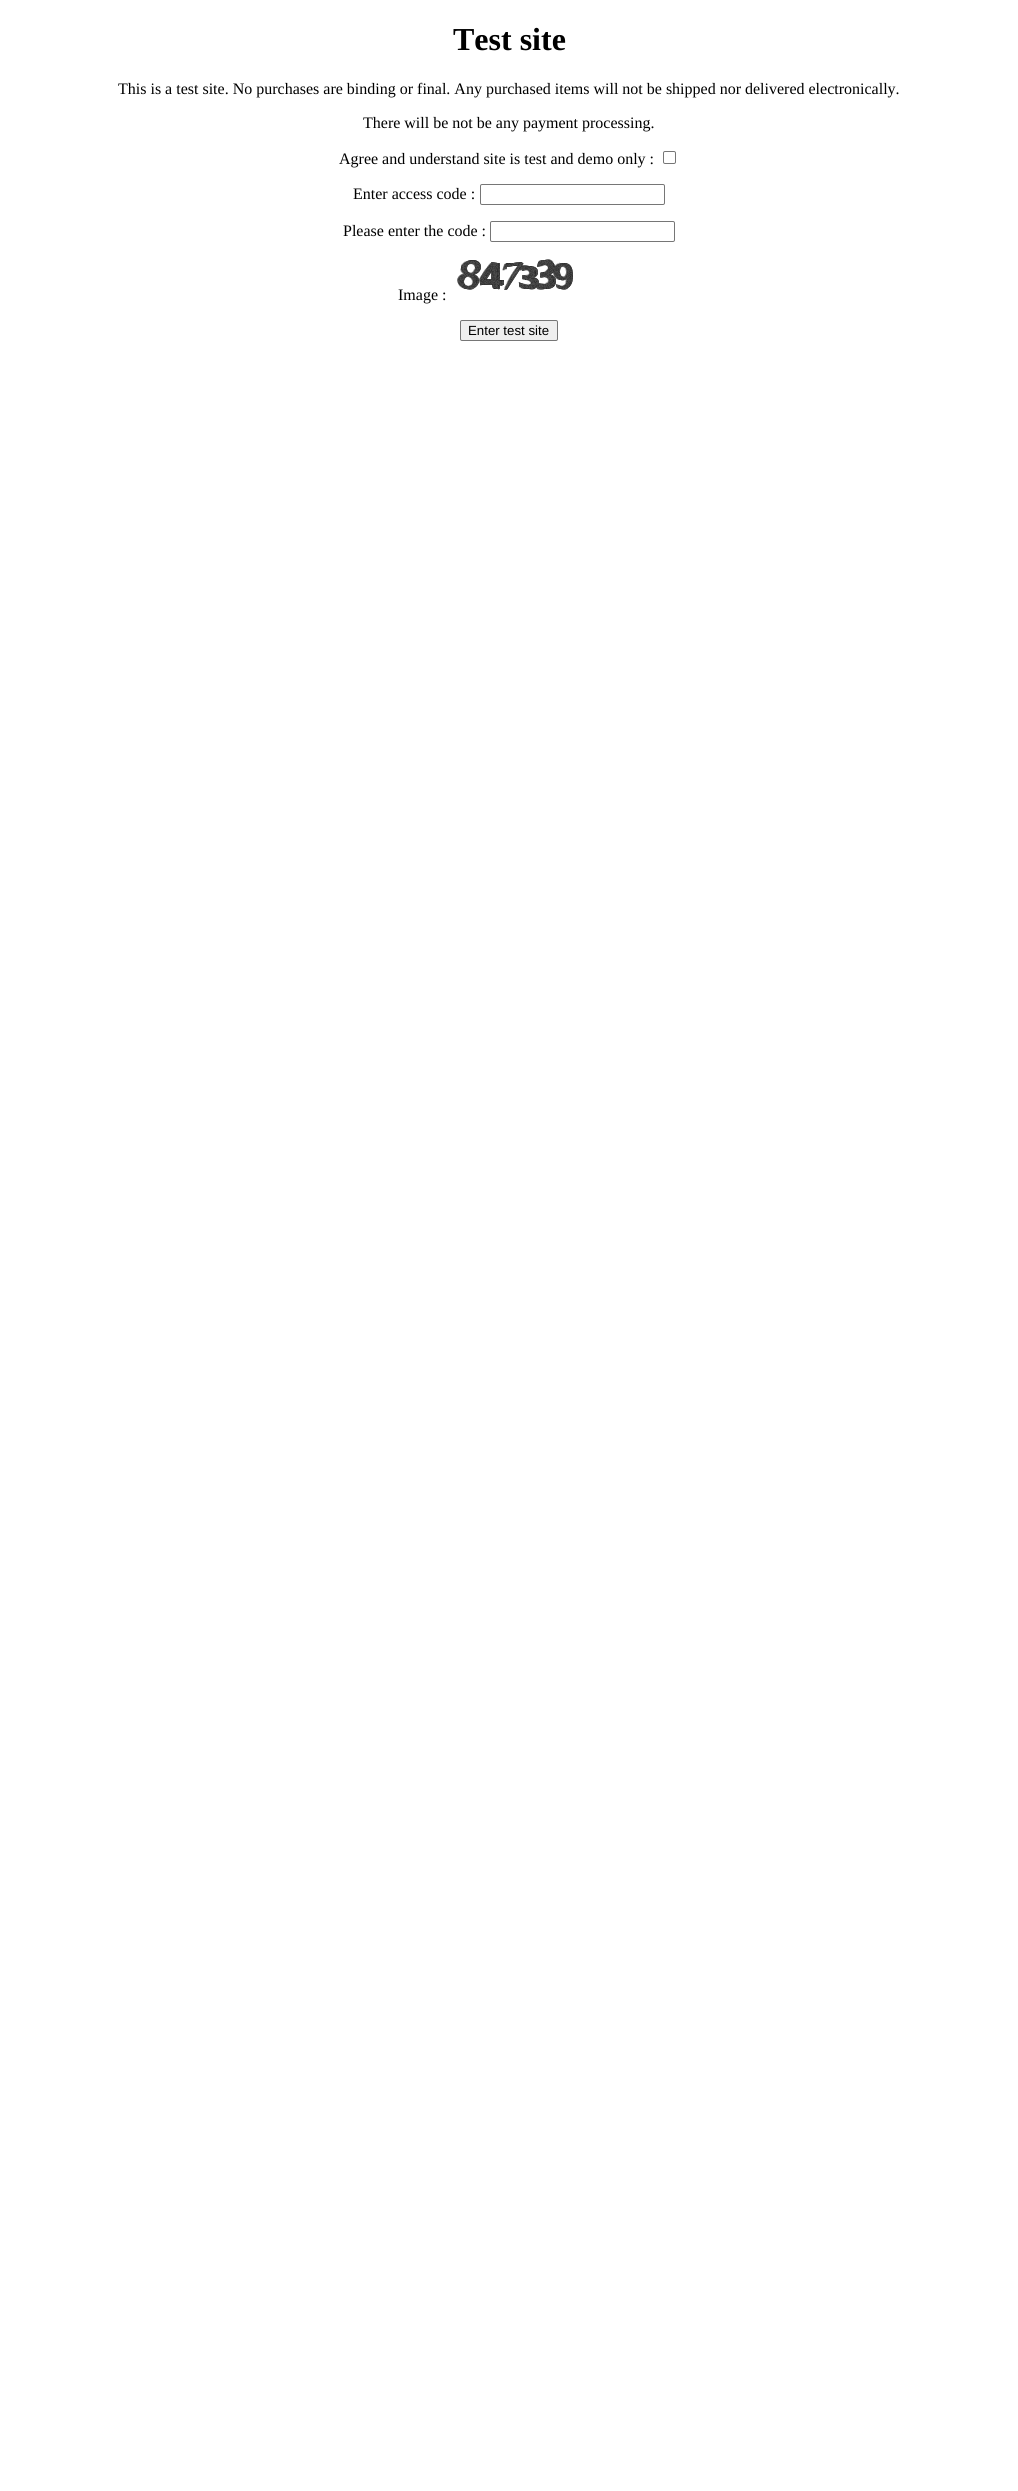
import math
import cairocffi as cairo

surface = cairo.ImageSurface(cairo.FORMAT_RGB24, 1018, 2491)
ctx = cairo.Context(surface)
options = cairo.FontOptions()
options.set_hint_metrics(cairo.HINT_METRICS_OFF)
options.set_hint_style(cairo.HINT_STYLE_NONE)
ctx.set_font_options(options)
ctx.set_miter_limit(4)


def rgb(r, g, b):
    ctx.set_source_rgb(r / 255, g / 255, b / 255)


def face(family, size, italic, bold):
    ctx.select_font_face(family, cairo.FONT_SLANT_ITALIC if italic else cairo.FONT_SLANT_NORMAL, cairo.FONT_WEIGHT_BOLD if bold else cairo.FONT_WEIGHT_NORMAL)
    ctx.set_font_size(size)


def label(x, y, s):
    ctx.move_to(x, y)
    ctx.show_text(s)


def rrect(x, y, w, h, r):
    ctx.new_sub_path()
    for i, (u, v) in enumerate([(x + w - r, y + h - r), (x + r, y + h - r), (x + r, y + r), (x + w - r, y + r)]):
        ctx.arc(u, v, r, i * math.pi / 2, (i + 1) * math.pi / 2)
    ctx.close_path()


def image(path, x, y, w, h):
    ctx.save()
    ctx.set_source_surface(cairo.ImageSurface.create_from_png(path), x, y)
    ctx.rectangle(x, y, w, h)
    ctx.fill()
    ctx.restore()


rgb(255, 255, 255)
ctx.paint()
face('Liberation Serif', 32, 0, 1)
rgb(0, 0, 0)
label(453, 50, 'Test site')
face('Liberation Serif', 16, 0, 0)
label(118, 94, 'This is a test site. No purchases are binding or final. Any purchased items will not be shipped nor delivered electronically.')
label(363, 128, 'There will be not be any payment processing.')
label(339, 164, 'Agree and understand site is test and demo only :')
rrect(663.5, 151.5, 12, 12, 1.5)
rgb(118, 118, 118)
ctx.set_line_width(1)
ctx.stroke()
rgb(0, 0, 0)
label(353, 199, 'Enter access code :')
rrect(480.5, 184.5, 184, 20, 1.5)
rgb(118, 118, 118)
ctx.stroke()
rgb(0, 0, 0)
label(343, 236, 'Please enter the code :')
rrect(490.5, 221.5, 184, 20, 1.5)
rgb(118, 118, 118)
ctx.stroke()
image('image0.png', 457, 259, 116, 31)
rgb(0, 0, 0)
label(398, 300, 'Image :')
rgb(239, 239, 239)
rrect(460.5, 320.5, 97, 20, 1.5)
ctx.fill_preserve()
rgb(118, 118, 118)
ctx.stroke()
face('Liberation Sans', 13.25, 0, 0)
rgb(0, 0, 0)
label(468, 335, 'Enter test site')
surface.write_to_png('render.png')
